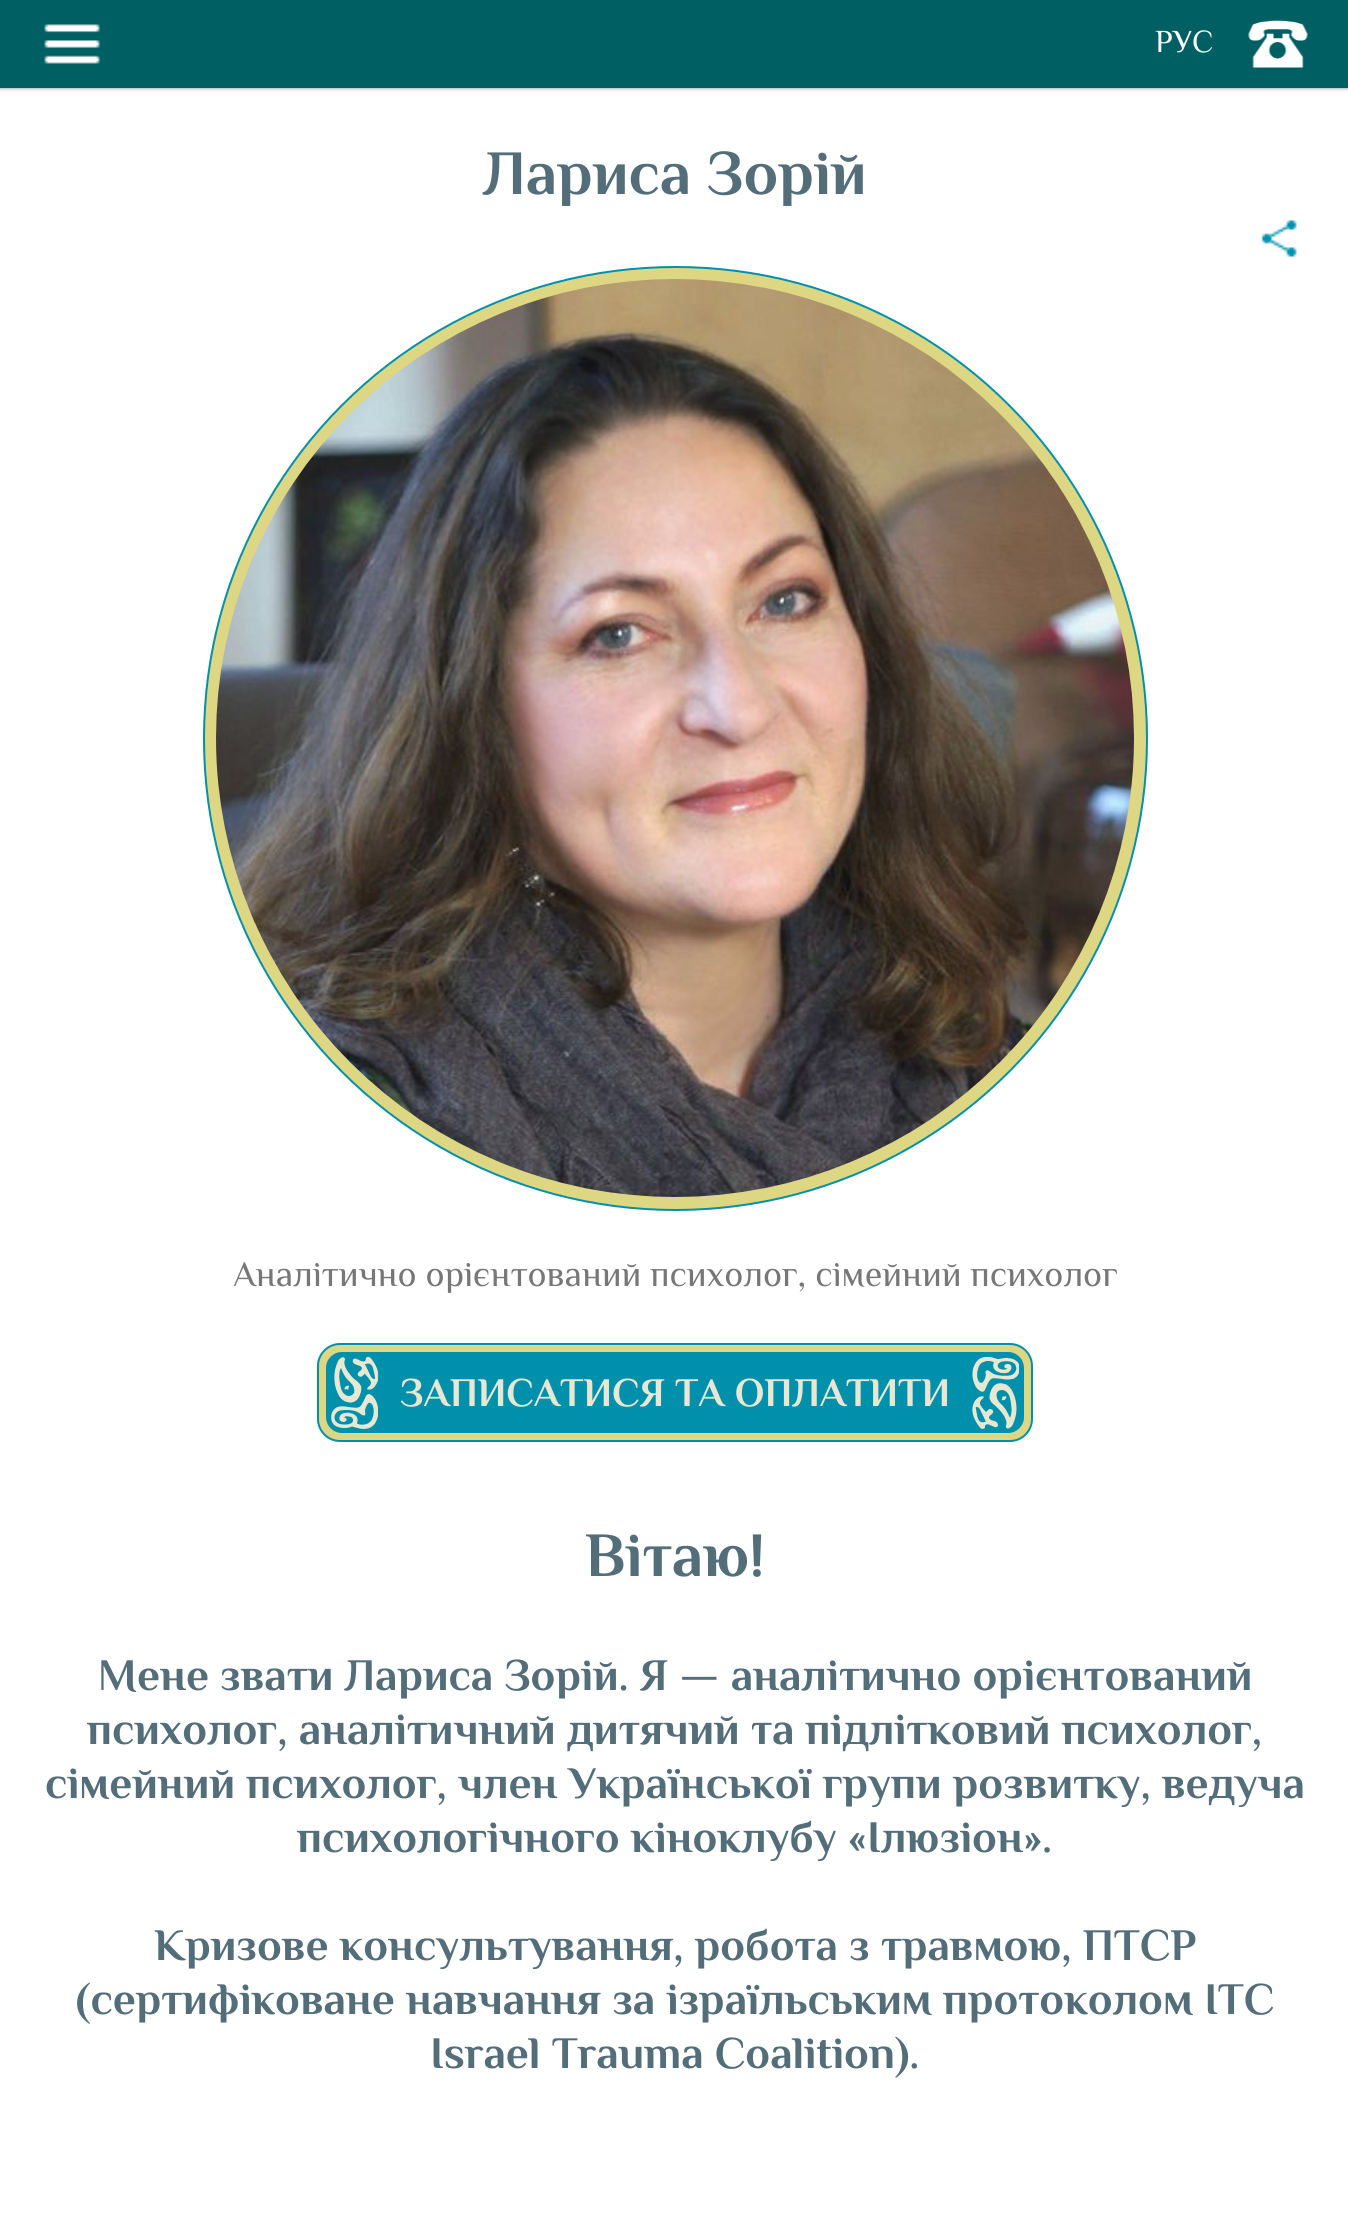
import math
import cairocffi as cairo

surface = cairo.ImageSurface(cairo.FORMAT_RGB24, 1348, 2240)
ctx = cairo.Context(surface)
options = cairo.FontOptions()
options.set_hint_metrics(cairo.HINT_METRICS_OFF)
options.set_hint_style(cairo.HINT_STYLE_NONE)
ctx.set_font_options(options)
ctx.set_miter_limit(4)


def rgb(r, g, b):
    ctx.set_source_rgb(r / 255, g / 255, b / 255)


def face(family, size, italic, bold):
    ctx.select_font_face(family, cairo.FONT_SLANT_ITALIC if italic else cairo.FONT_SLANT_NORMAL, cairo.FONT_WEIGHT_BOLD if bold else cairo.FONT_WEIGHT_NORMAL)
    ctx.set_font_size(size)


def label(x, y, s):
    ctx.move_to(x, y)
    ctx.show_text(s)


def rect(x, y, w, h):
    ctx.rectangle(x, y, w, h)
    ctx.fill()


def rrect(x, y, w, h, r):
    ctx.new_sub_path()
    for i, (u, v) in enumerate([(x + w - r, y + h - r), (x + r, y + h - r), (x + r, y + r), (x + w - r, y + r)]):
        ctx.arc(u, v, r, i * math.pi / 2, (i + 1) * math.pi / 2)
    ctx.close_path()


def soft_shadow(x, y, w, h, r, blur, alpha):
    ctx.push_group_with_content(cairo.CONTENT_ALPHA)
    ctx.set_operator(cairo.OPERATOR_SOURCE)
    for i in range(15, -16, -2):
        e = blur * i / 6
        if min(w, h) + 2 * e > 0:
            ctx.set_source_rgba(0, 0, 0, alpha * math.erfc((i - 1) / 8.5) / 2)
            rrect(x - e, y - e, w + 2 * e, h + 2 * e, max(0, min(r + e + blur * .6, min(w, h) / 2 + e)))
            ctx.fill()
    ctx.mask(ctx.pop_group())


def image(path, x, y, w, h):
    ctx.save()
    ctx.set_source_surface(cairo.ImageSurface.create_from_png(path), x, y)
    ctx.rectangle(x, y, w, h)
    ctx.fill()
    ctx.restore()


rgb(255, 255, 255)
ctx.paint()
rgb(0, 0, 0)
soft_shadow(0, 0, 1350, 88, 0, 2, 0.5)
rgb(0, 95, 99)
rect(0, 0, 1348, 88)
image('image0.png', 44, 24, 56, 40)
face('Philosopher', 32, 0, 0)
rgb(255, 255, 255)
label(1155, 52, 'РУС')
image('image1.png', 1248, 20, 60, 48)
face('Philosopher', 63, 0, 1)
rgb(83, 109, 121)
label(483, 194, 'Лариса Зорій')
image('image2.png', 1261, 220, 36, 38)
rgb(221, 214, 131)
ctx.arc(675.5, 738.5, 471.5, 0, 2 * math.pi)
ctx.fill_preserve()
rgb(0, 144, 172)
ctx.stroke()
image('image3.png', 216, 279, 918, 918)
face('Philosopher', 36, 0, 0)
rgb(119, 119, 119)
label(233, 1286, 'Аналітично орієнтований психолог, сімейний психолог')
rgb(221, 214, 131)
rrect(318, 1344, 714, 97, 22)
ctx.fill_preserve()
rgb(0, 144, 172)
ctx.stroke()
rrect(326, 1352, 698, 81, 16)
ctx.fill()
image('image4.png', 331, 1357, 47, 72)
face('Philosopher', 40.5, 0, 1)
rgb(231, 231, 211)
label(400, 1406, 'ЗАПИСАТИСЯ ТА ОПЛАТИТИ')
image('image5.png', 972, 1357, 47, 72)
face('Philosopher', 63, 0, 1)
rgb(83, 109, 121)
label(585, 1576, 'Вітаю!')
face('Philosopher', 45, 0, 1)
label(98, 1690, 'Мене звати Лариса Зорій. Я — аналітично орієнтований')
label(87, 1744, 'психолог, аналітичний дитячий та підлітковий психолог,')
label(45, 1798, 'сімейний психолог, член Української групи розвитку, ведуча')
label(297, 1852, 'психологічного кіноклубу «Ілюзіон».')
label(154, 1960, 'Кризове консультування, робота з травмою, ПТСР')
label(76, 2014, '(сертифіковане навчання за ізраїльським протоколом ITC')
label(430, 2068, 'Israel Trauma Coalition).')
surface.write_to_png('render.png')
